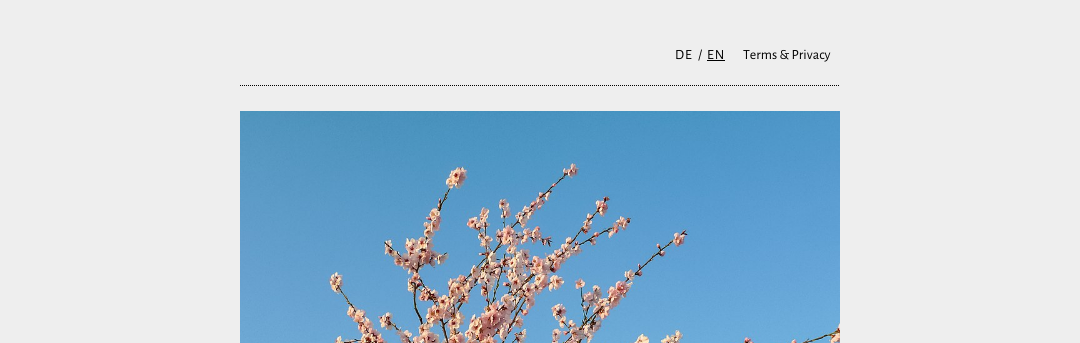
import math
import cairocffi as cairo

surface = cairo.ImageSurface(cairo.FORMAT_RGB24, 1080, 343)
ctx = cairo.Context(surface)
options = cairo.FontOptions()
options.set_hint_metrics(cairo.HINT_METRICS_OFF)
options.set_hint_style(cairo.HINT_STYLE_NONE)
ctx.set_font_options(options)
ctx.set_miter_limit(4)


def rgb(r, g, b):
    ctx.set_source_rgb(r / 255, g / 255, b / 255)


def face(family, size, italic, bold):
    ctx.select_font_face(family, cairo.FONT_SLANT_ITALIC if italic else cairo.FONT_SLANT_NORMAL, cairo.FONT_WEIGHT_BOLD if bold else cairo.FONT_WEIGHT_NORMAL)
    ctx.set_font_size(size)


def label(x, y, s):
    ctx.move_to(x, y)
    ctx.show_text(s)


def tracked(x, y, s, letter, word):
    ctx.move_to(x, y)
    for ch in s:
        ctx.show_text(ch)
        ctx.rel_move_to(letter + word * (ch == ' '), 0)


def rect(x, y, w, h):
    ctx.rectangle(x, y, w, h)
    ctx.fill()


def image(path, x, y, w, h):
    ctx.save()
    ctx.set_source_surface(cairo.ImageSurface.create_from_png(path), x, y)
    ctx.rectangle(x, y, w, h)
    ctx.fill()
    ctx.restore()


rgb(238, 238, 238)
ctx.paint()
face('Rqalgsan', 14, 0, 0)
rgb(0, 0, 0)
tracked(675, 59, 'DE', 1, 0)
label(698, 59, '/')
tracked(707, 59, 'EN', 1, 0)
rect(707, 60, 18, 1)
label(743, 59, 'Terms & Privacy')
ctx.new_path()
ctx.move_to(240, 85.5)
ctx.line_to(840, 85.5)
ctx.set_line_width(1)
ctx.set_dash([1, 1])
ctx.stroke()
image('image0.png', 240, 111, 600, 232)
surface.write_to_png('render.png')
